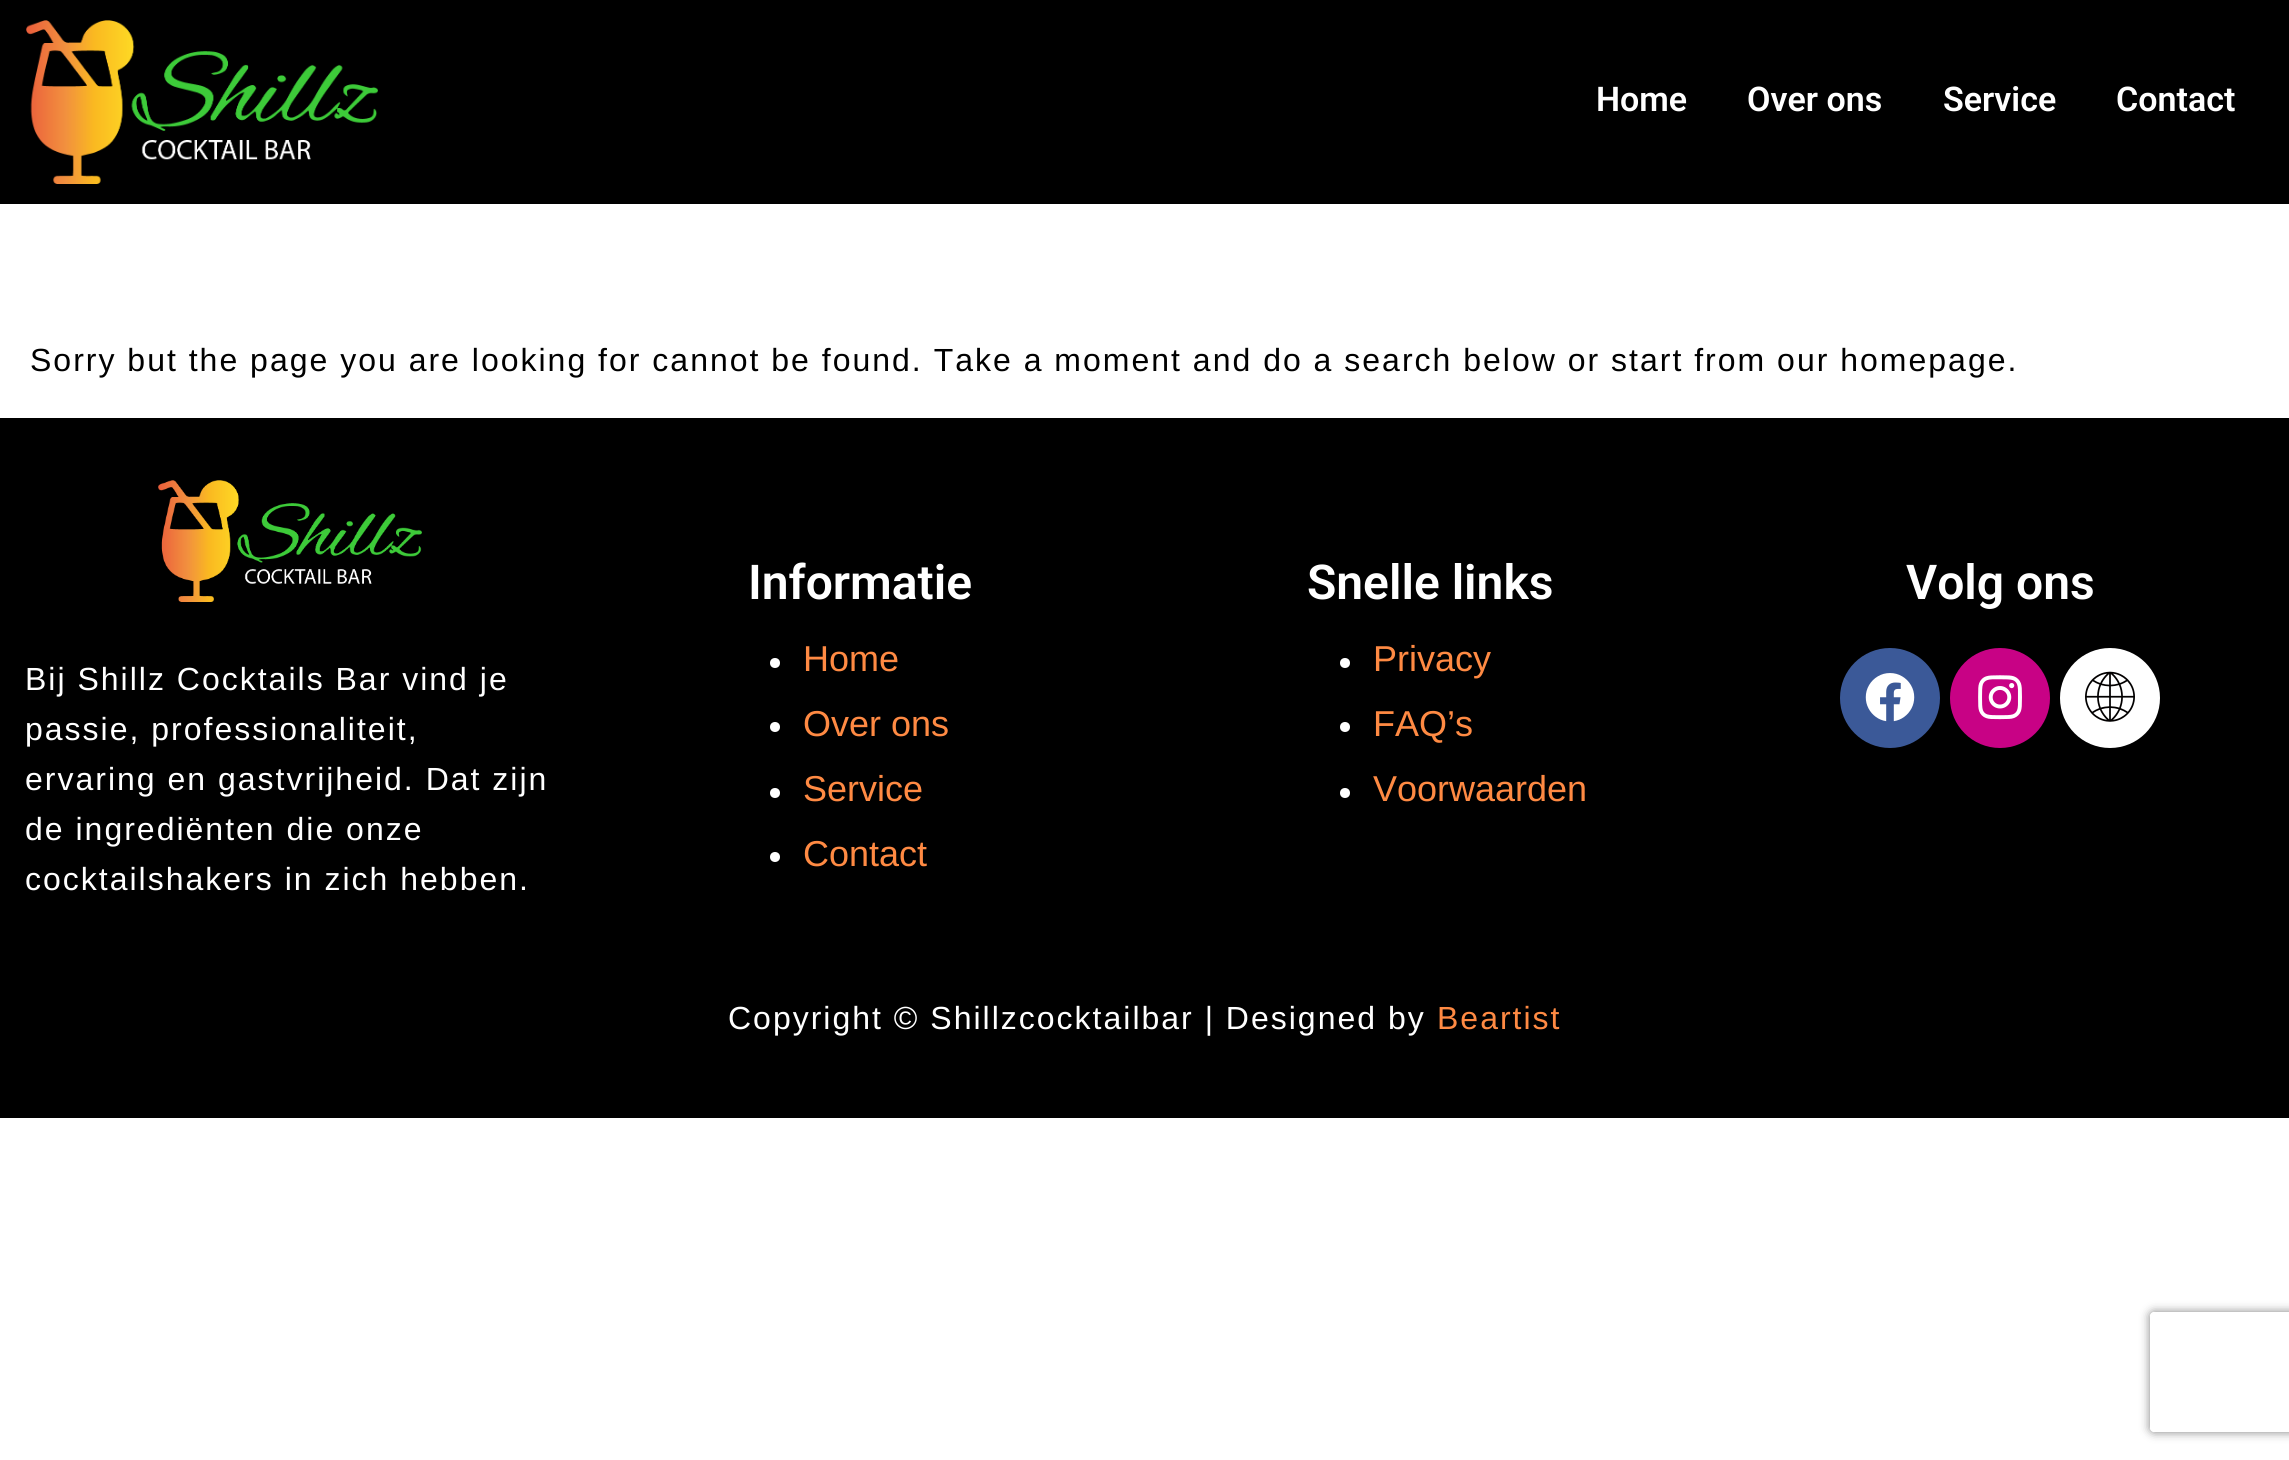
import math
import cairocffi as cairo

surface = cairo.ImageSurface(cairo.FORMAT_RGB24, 2289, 1460)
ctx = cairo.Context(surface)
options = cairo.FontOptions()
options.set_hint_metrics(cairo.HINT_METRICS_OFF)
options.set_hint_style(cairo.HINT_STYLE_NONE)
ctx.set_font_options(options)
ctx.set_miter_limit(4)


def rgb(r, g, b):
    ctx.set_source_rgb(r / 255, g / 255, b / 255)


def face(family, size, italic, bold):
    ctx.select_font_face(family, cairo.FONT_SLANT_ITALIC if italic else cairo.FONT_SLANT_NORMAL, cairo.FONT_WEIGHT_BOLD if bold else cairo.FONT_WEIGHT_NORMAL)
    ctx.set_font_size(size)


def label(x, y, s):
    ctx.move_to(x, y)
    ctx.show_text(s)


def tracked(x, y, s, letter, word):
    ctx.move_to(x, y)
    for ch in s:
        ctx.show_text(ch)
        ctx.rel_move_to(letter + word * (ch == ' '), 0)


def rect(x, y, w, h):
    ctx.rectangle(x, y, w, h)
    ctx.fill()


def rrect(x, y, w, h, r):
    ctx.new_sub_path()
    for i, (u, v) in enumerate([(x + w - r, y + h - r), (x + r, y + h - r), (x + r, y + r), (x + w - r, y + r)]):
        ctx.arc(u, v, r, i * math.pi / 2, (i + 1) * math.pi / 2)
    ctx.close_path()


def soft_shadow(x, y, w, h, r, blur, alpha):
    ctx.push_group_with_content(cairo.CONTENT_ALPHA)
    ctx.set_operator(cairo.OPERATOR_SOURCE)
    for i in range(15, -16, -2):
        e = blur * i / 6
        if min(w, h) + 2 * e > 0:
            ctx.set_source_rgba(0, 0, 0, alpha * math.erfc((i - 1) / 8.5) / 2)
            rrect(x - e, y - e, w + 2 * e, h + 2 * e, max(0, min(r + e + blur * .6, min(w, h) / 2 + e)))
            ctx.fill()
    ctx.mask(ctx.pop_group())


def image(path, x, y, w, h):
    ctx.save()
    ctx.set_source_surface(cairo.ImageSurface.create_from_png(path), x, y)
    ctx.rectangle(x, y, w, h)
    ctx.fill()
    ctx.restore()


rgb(255, 255, 255)
ctx.paint()
rgb(0, 0, 0)
rect(0, 0, 2289, 204)
image('image0.png', 26, 20, 352, 164)
face('Roboto SemiBold', 34, 0, 0)
rgb(255, 255, 255)
label(1596, 111, 'Home')
label(1747, 111, 'Over ons')
label(1943, 111, 'Service')
label(2116, 111, 'Contact')
face('Liberation Sans', 32, 0, 0)
rgb(0, 0, 0)
tracked(30, 371, 'Sorry but the page you are looking for cannot be found. Take a moment and do a search below or start from our homepage.', 2, 0)
rect(0, 418, 2289, 700)
face('Roboto SemiBold', 48, 0, 0)
rgb(255, 255, 255)
label(748, 599, 'Informatie')
ctx.new_path()
ctx.arc(775, 663, 5, 0, 2 * math.pi)
ctx.fill()
face('Liberation Sans', 36, 0, 0)
rgb(255, 138, 67)
label(803, 671, 'Home')
rgb(255, 255, 255)
ctx.new_path()
ctx.arc(775, 727, 5, 0, 2 * math.pi)
ctx.fill()
rgb(255, 138, 67)
label(803, 736, 'Over ons')
rgb(255, 255, 255)
ctx.new_path()
ctx.arc(775, 793, 5, 0, 2 * math.pi)
ctx.fill()
rgb(255, 138, 67)
label(803, 801, 'Service')
rgb(255, 255, 255)
ctx.new_path()
ctx.arc(775, 857, 5, 0, 2 * math.pi)
ctx.fill()
rgb(255, 138, 67)
label(803, 866, 'Contact')
face('Roboto SemiBold', 48, 0, 0)
rgb(255, 255, 255)
label(1307, 599, 'Snelle links')
ctx.new_path()
ctx.arc(1345, 663, 5, 0, 2 * math.pi)
ctx.fill()
face('Liberation Sans', 36, 0, 0)
rgb(255, 138, 67)
label(1373, 671, 'Privacy')
rgb(255, 255, 255)
ctx.new_path()
ctx.arc(1345, 727, 5, 0, 2 * math.pi)
ctx.fill()
rgb(255, 138, 67)
label(1373, 736, 'FAQ’s')
rgb(255, 255, 255)
ctx.new_path()
ctx.arc(1345, 793, 5, 0, 2 * math.pi)
ctx.fill()
rgb(255, 138, 67)
label(1373, 801, 'Voorwaarden')
face('Roboto SemiBold', 48, 0, 0)
rgb(255, 255, 255)
label(1906, 599, 'Volg ons')
rgb(59, 89, 152)
ctx.new_path()
ctx.arc(1890, 698, 50, 0, 2 * math.pi)
ctx.fill()
image('image1.png', 1865, 673, 50, 49)
rgb(200, 2, 133)
ctx.arc(2000, 698, 50, 0, 2 * math.pi)
ctx.fill()
image('image2.png', 1978, 675, 44, 45)
rgb(255, 255, 255)
ctx.arc(2110, 698, 50, 0, 2 * math.pi)
ctx.fill()
image('image3.png', 2085, 671, 50, 51)
image('image4.png', 158, 480, 264, 122)
face('Liberation Sans', 32, 0, 0)
tracked(25, 690, 'Bij Shillz Cocktails Bar vind je', 2, 0)
tracked(25, 740, 'passie, professionaliteit,', 2, 0)
tracked(25, 790, 'ervaring en gastvrijheid. Dat zijn', 2, 0)
tracked(25, 840, 'de ingrediënten die onze', 2, 0)
tracked(25, 890, 'cocktailshakers in zich hebben.', 2, 0)
tracked(728, 1029, 'Copyright © Shillzcocktailbar | Designed by', 2, 0)
rgb(255, 138, 67)
tracked(1437, 1029, 'Beartist', 2, 0)
ctx.save()
ctx.set_fill_rule(cairo.FILL_RULE_EVEN_ODD)
ctx.new_path()
ctx.move_to(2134, 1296)
ctx.line_to(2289, 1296)
ctx.line_to(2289, 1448)
ctx.line_to(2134, 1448)
ctx.close_path()
ctx.move_to(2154, 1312)
ctx.line_to(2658, 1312)
ctx.curve_to(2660, 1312, 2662, 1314, 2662, 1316)
ctx.line_to(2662, 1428)
ctx.curve_to(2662, 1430, 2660, 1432, 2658, 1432)
ctx.line_to(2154, 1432)
ctx.curve_to(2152, 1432, 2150, 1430, 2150, 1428)
ctx.line_to(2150, 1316)
ctx.curve_to(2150, 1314, 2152, 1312, 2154, 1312)
ctx.close_path()
ctx.clip()
rgb(128, 128, 128)
soft_shadow(2150, 1312, 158, 120, 4, 5, 1)
ctx.restore()
surface.write_to_png('render.png')
